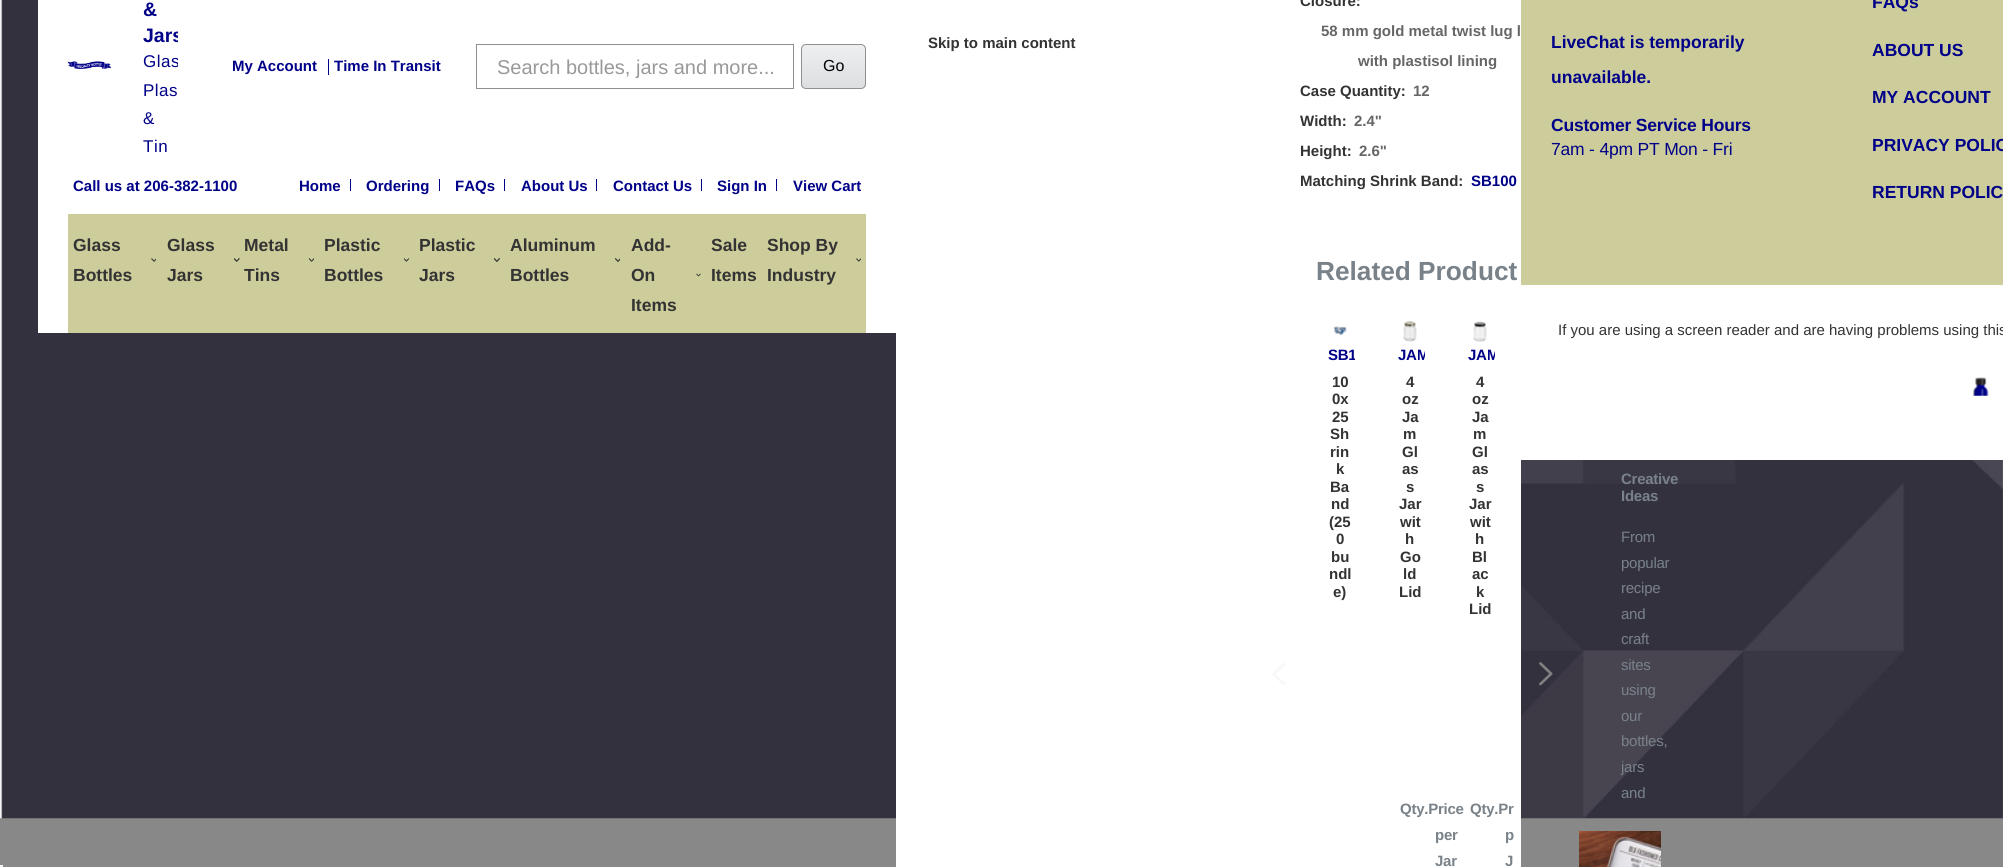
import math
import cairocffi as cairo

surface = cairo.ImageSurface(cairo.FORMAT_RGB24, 2003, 867)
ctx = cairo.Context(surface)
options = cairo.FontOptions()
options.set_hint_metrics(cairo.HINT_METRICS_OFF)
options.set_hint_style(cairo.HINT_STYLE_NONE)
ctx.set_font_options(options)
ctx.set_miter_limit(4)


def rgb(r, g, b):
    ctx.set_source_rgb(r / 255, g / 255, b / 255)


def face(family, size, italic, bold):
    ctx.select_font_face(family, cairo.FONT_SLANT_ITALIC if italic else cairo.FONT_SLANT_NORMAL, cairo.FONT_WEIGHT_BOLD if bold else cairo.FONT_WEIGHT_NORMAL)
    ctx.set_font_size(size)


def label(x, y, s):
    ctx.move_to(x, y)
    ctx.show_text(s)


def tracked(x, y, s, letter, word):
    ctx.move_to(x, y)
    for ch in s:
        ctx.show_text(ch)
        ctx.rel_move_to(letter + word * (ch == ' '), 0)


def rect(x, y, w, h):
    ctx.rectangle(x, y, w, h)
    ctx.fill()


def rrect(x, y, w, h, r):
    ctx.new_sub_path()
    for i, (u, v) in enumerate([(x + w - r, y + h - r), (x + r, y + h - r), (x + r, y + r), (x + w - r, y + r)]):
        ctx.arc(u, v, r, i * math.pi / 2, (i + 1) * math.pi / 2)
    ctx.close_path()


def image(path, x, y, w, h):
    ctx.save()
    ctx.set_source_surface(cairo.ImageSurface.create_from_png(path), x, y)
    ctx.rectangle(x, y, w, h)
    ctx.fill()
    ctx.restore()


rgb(136, 136, 136)
ctx.paint()
image('image0.png', 0, 0, 2003, 819)
rgb(255, 255, 255)
rect(38, 0, 858, 333)
image('image1.png', 67, 61, 44, 8)
face('Liberation Sans', 19.5, 0, 1)
rgb(0, 0, 136)
label(143, 16, '&')
ctx.save()
ctx.rectangle(131, 0, 47, 161)
ctx.clip()
label(143, 42, 'Jars')
face('Liberation Sans', 17, 0, 0)
tracked(143, 67, 'Glas', 0.5, 0)
ctx.restore()
face('Liberation Sans', 17, 0, 0)
tracked(143, 96, 'Plas', 0.5, 0)
tracked(143, 124, '&', 0.5, 0)
tracked(143, 152, 'Tin', 0.5, 0)
face('Liberation Sans', 15, 0, 1)
label(232, 71, 'My Account')
rect(328, 59, 1, 16)
label(334, 71, 'Time In Transit')
ctx.rectangle(476.5, 44.5, 317, 44)
rgb(143, 143, 143)
ctx.set_line_width(1)
ctx.stroke()
face('Liberation Sans', 20, 0, 0)
rgb(153, 153, 153)
label(497, 74, 'Search bottles, jars and more...')
ctx.save()
rrect(801, 44, 65, 45, 5)
ctx.clip()
gradient = cairo.LinearGradient(834, 45, 834, 88)
gradient.add_color_stop_rgba(0, 0.929, 0.937, 0.941, 1)
gradient.add_color_stop_rgba(1, 0.863, 0.871, 0.878, 1)
ctx.set_source(gradient)
rect(801, 45, 65, 43)
ctx.restore()
rrect(801.5, 44.5, 64, 44, 4.5)
rgb(143, 143, 143)
ctx.stroke()
face('Liberation Sans', 16, 0, 0)
rgb(0, 0, 0)
label(823, 71, 'Go')
face('Liberation Sans', 15, 0, 1)
rgb(0, 0, 136)
label(73, 191, 'Call us at 206-382-1100')
label(299, 191, 'Home')
rect(350, 179, 1, 12)
label(366, 191, 'Ordering')
rect(439, 179, 1, 12)
label(455, 191, 'FAQs')
rect(504, 179, 1, 12)
label(521, 191, 'About Us')
rect(596, 179, 1, 12)
label(613, 191, 'Contact Us')
rect(701, 179, 1, 12)
label(717, 191, 'Sign In')
rect(776, 179, 1, 12)
label(793, 191, 'View Cart')
rgb(205, 205, 155)
rect(68, 214, 798, 119)
face('Liberation Sans', 17.5, 0, 1)
rgb(51, 51, 51)
label(73, 251, 'Glass')
image('image2.png', 151, 258, 5, 4)
label(73, 281, 'Bottles')
label(167, 251, 'Glass')
image('image3.png', 234, 258, 6, 4)
label(167, 281, 'Jars')
label(244, 251, 'Metal')
image('image4.png', 309, 258, 5, 4)
label(244, 281, 'Tins')
label(324, 251, 'Plastic')
image('image5.png', 404, 258, 5, 4)
label(324, 281, 'Bottles')
label(419, 251, 'Plastic')
image('image6.png', 494, 258, 6, 4)
label(419, 281, 'Jars')
label(510, 251, 'Aluminum')
image('image7.png', 615, 258, 5, 4)
label(510, 281, 'Bottles')
label(631, 251, 'Add-')
label(631, 281, 'On')
image('image8.png', 696, 273, 5, 4)
label(631, 311, 'Items')
label(711, 251, 'Sale')
label(711, 281, 'Items')
label(767, 251, 'Shop By')
image('image9.png', 856, 258, 5, 4)
label(767, 281, 'Industry')
rgb(255, 255, 255)
rect(896, 0, 625, 867)
face('Liberation Sans', 15, 0, 1)
rgb(51, 51, 51)
label(928, 48, 'Skip to main content')
label(1300, 6, 'Closure:')
rgb(102, 102, 102)
label(1321, 36, '58 mm gold metal twist lug l')
label(1358, 66, 'with plastisol lining')
rgb(51, 51, 51)
label(1300, 96, 'Case Quantity:')
rgb(102, 102, 102)
label(1413, 96, '12')
rgb(51, 51, 51)
label(1300, 126, 'Width:')
rgb(102, 102, 102)
label(1354, 126, '2.4"')
rgb(51, 51, 51)
label(1300, 156, 'Height:')
rgb(102, 102, 102)
label(1359, 156, '2.6"')
rgb(51, 51, 51)
label(1300, 186, 'Matching Shrink Band:')
rgb(0, 0, 136)
label(1471, 186, 'SB100')
face('Liberation Sans', 26.25, 0, 1)
rgb(121, 130, 137)
label(1316, 280, 'Related Product')
image('image10.png', 1272, 663, 14, 22)
image('image11.png', 1333, 326, 14, 10)
ctx.save()
ctx.rectangle(1325, 316, 30, 309)
ctx.clip()
face('Liberation Sans', 15, 0, 1)
rgb(0, 0, 136)
tracked(1328, 360, 'SB1', -0.25, 0)
ctx.restore()
face('Liberation Sans', 15, 0, 1)
rgb(51, 51, 51)
label(1332, 387, '10')
label(1332, 404, '0x')
label(1332, 422, '25')
label(1330, 439, 'Sh')
label(1330, 457, 'rin')
label(1336, 474, 'k')
label(1330, 492, 'Ba')
label(1331, 509, 'nd')
label(1329, 527, '(25')
label(1336, 544, '0')
label(1331, 562, 'bu')
label(1329, 579, 'ndl')
label(1333, 597, 'e)')
image('image12.png', 1403, 321, 14, 21)
ctx.save()
ctx.rectangle(1395, 316, 30, 309)
ctx.clip()
rgb(0, 0, 136)
tracked(1398, 360, 'JAM', -0.25, 0)
ctx.restore()
label(1406, 387, '4')
label(1402, 404, 'oz')
label(1402, 422, 'Ja')
label(1403, 439, 'm')
label(1402, 457, 'Gl')
label(1402, 474, 'as')
label(1406, 492, 's')
label(1399, 509, 'Jar')
label(1400, 527, 'wit')
label(1405, 544, 'h')
label(1400, 562, 'Go')
label(1403, 579, 'ld')
label(1399, 597, 'Lid')
rgb(121, 130, 137)
tracked(1400, 814, 'Qty.Price', -0.25, 0)
tracked(1435, 840, 'per', -0.25, 0)
tracked(1435, 866, 'Jar', -0.25, 0)
image('image13.png', 1473, 321, 14, 21)
ctx.save()
ctx.rectangle(1465, 316, 30, 327)
ctx.clip()
rgb(0, 0, 136)
tracked(1468, 360, 'JAM', -0.25, 0)
ctx.restore()
rgb(51, 51, 51)
label(1476, 387, '4')
label(1472, 404, 'oz')
label(1472, 422, 'Ja')
label(1473, 439, 'm')
label(1472, 457, 'Gl')
label(1472, 474, 'as')
label(1476, 492, 's')
label(1469, 509, 'Jar')
label(1470, 527, 'wit')
label(1475, 544, 'h')
label(1472, 562, 'Bl')
label(1472, 579, 'ac')
label(1476, 597, 'k')
label(1469, 614, 'Lid')
rgb(121, 130, 137)
tracked(1470, 814, 'Qty.Pr', -0.25, 0)
tracked(1505, 840, 'p', -0.25, 0)
tracked(1505, 866, 'J', -0.25, 0)
image('image14.png', 1539, 662, 14, 24)
tracked(1621, 484, 'Creative', -0.25, 0)
tracked(1621, 501, 'Ideas', -0.25, 0)
face('Liberation Sans', 15, 0, 0)
tracked(1621, 542, 'From', -0.25, 0)
tracked(1621, 568, 'popular', -0.25, 0)
tracked(1621, 593, 'recipe', -0.25, 0)
tracked(1621, 619, 'and', -0.25, 0)
tracked(1621, 644, 'craft', -0.25, 0)
tracked(1621, 670, 'sites', -0.25, 0)
tracked(1621, 695, 'using', -0.25, 0)
tracked(1621, 721, 'our', -0.25, 0)
tracked(1621, 746, 'bottles,', -0.25, 0)
tracked(1621, 772, 'jars', -0.25, 0)
tracked(1621, 798, 'and', -0.25, 0)
image('image15.png', 1579, 831, 82, 36)
rgb(255, 255, 255)
rect(1521, 285, 482, 175)
rgb(205, 205, 155)
rect(1521, 0, 482, 285)
face('Liberation Sans', 17.5, 0, 1)
rgb(0, 0, 136)
label(1551, 48, 'LiveChat is temporarily')
label(1551, 83, 'unavailable.')
tracked(1551, 131, 'Customer Service Hours', -0.2, 0)
face('Liberation Sans', 17.5, 0, 0)
tracked(1551, 155, '7am - 4pm PT Mon - Fri', -0.2, 0)
face('Liberation Sans', 17.5, 0, 1)
label(1872, 8, 'FAQs')
label(1872, 56, 'ABOUT US')
label(1872, 103, 'MY ACCOUNT')
label(1872, 151, 'PRIVACY POLIC')
label(1872, 198, 'RETURN POLIC')
face('Liberation Sans', 15, 0, 0)
rgb(51, 51, 51)
label(1558, 335, 'If you are using a screen reader and are having problems using this')
image('image16.png', 1972, 377, 17, 19)
rgb(245, 245, 245)
rect(0, 865, 3, 2)
surface.write_to_png('render.png')
